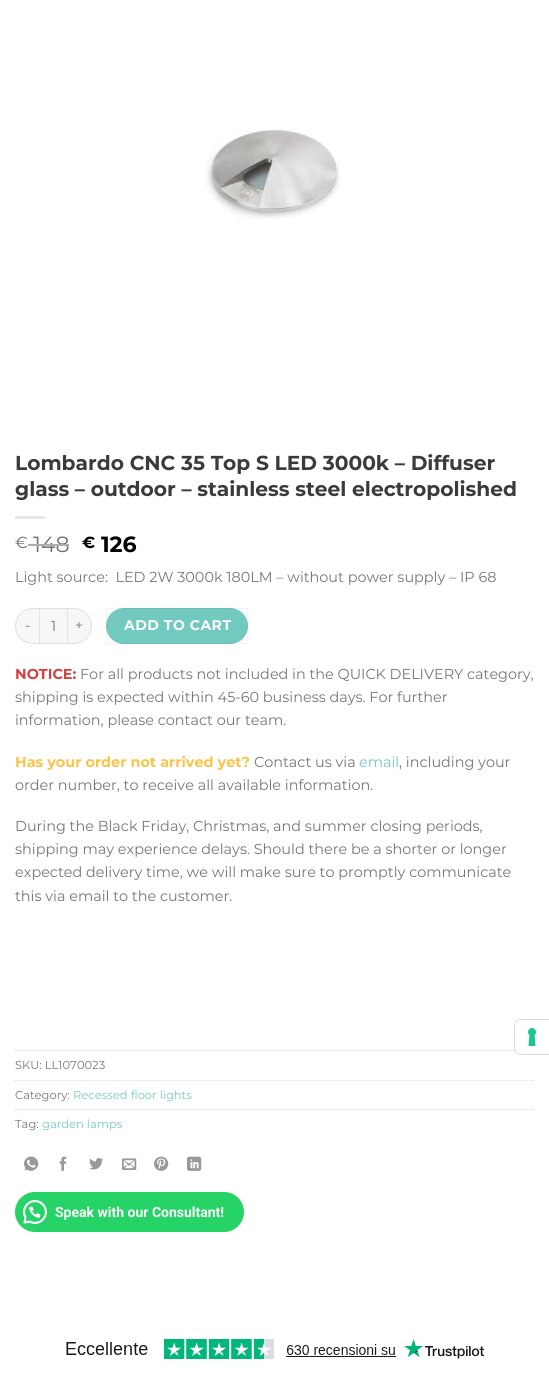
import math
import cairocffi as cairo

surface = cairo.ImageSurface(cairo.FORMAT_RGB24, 549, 1383)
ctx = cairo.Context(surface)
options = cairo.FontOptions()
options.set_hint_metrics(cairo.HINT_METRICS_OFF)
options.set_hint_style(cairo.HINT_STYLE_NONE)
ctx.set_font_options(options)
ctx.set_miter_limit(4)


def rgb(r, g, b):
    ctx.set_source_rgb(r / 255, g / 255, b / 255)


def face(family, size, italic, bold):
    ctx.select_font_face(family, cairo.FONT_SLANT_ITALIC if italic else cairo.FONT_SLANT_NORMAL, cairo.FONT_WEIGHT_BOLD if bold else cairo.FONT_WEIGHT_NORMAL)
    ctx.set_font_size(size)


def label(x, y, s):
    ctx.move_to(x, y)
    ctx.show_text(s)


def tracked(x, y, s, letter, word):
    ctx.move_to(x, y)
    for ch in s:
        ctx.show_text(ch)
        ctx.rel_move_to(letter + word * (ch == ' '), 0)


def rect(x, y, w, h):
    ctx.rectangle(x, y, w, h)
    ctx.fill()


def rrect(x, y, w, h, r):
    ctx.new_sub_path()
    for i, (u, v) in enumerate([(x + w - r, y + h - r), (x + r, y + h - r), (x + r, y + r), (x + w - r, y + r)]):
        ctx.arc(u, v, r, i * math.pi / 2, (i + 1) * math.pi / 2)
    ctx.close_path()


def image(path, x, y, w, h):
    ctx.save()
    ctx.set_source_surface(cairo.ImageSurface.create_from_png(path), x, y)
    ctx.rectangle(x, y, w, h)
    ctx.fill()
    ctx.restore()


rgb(255, 255, 255)
ctx.paint()
image('image0.png', 205, 129, 135, 90)
face('Montserrat', 20.2, 0, 1)
rgb(59, 59, 59)
label(15, 470, 'Lombardo CNC 35 Top S LED 3000k – Diffuser')
label(15, 496, 'glass – outdoor – stainless steel electropolished')
rgb(230, 230, 230)
rect(15, 516, 30, 3)
face('Montserrat', 16, 0, 0)
rgb(112, 112, 112)
label(15, 548, '€')
face('Montserrat', 22, 0, 0)
label(33, 552, '148')
rgb(173, 173, 173)
rect(28, 544, 41, 2)
face('Montserrat', 16, 0, 1)
rgb(0, 0, 0)
label(82, 548, '€')
face('Montserrat', 22, 0, 1)
label(101, 552, '126')
face('Montserrat', 14.4, 0, 0)
rgb(119, 119, 119)
label(15, 582, 'Light source:  LED 2W 3000k 180LM – without power supply – IP 68')
rgb(247, 247, 247)
ctx.new_path()
ctx.move_to(33, 608)
ctx.line_to(39, 608)
ctx.line_to(39, 644)
ctx.line_to(33, 644)
ctx.curve_to(23, 644, 15, 636, 15, 626)
ctx.curve_to(15, 616, 23, 608, 33, 608)
ctx.close_path()
ctx.fill()
ctx.set_source_rgba(0, 0, 0, 0.09)
ctx.set_fill_rule(cairo.FILL_RULE_EVEN_ODD)
ctx.new_path()
ctx.move_to(33, 608)
ctx.line_to(39, 608)
ctx.line_to(39, 644)
ctx.curve_to(34.5, 644, 30, 644.5, 26, 642.5)
ctx.curve_to(8, 635, 13.5, 608, 33, 608)
ctx.close_path()
ctx.move_to(33, 609)
ctx.line_to(39, 609)
ctx.line_to(39, 643)
ctx.curve_to(35, 643, 30.5, 643.5, 26.5, 641.5)
ctx.curve_to(9.5, 634.5, 14.5, 609, 33, 609)
ctx.close_path()
ctx.fill()
face('Montserrat', 14, 0, 0)
rgb(119, 119, 119)
tracked(25, 630, '-', 0.5, 0)
rgb(247, 247, 247)
ctx.rectangle(39.5, 608.5, 28, 35)
ctx.fill_preserve()
rgb(225, 225, 225)
ctx.set_line_width(1)
ctx.stroke()
face('Montserrat', 14.4, 0, 0)
rgb(119, 119, 119)
label(51, 631, '1')
rgb(247, 247, 247)
ctx.new_path()
ctx.move_to(68, 608)
ctx.line_to(74, 608)
ctx.curve_to(84, 608, 92, 616, 92, 626)
ctx.curve_to(92, 636, 84, 644, 74, 644)
ctx.line_to(68, 644)
ctx.close_path()
ctx.fill()
ctx.set_source_rgba(0, 0, 0, 0.09)
ctx.new_path()
ctx.move_to(68, 608)
ctx.line_to(74, 608)
ctx.curve_to(84, 608, 92, 616, 92, 626)
ctx.curve_to(92, 636, 84, 644, 74, 644)
ctx.line_to(68, 644)
ctx.close_path()
ctx.move_to(68, 609)
ctx.line_to(74, 609)
ctx.curve_to(83.5, 609, 91, 616.5, 91, 626)
ctx.curve_to(91, 635.5, 83.5, 643, 74, 643)
ctx.line_to(68, 643)
ctx.close_path()
ctx.fill()
face('Montserrat', 14, 0, 0)
rgb(119, 119, 119)
tracked(75, 630, '+', 0.5, 0)
rgb(114, 201, 192)
rrect(106, 608, 142, 36, 18)
ctx.fill()
ctx.rectangle(106.5, 608.5, 141, 35)
ctx.set_source_rgba(0, 0, 0, 0.05)
ctx.stroke()
face('Montserrat', 14, 0, 1)
rgb(255, 255, 255)
tracked(124, 630, 'ADD TO CART', 0.5, 0)
face('Montserrat', 14.4, 0, 1)
rgb(211, 66, 66)
label(15, 679, 'NOTICE:')
face('Montserrat', 14.4, 0, 0)
rgb(119, 119, 119)
label(80, 679, 'For all products not included in the QUICK DELIVERY category,')
label(15, 702, 'shipping is expected within 45-60 business days. For further')
label(15, 725, 'information, please contact our team.')
face('Montserrat', 14.4, 0, 1)
rgb(248, 197, 75)
label(15, 767, 'Has your order not arrived yet?')
face('Montserrat', 14.4, 0, 0)
rgb(119, 119, 119)
label(254, 767, 'Contact us via')
rgb(114, 201, 192)
label(359, 767, 'email')
rgb(119, 119, 119)
label(399, 767, ', including your')
label(15, 790, 'order number, to receive all available information.')
label(15, 831, 'During the Black Friday, Christmas, and summer closing periods,')
label(15, 854, 'shipping may experience delays. Should there be a shorter or longer')
label(15, 877, 'expected delivery time, we will make sure to promptly communicate')
label(15, 901, 'this via email to the customer.')
ctx.new_path()
ctx.move_to(15, 1050.5)
ctx.line_to(534, 1050.5)
rgb(221, 221, 221)
ctx.set_dash([1, 1])
ctx.stroke()
face('Montserrat', 11.5, 0, 0)
rgb(119, 119, 119)
label(15, 1069, 'SKU: LL1070023')
ctx.new_path()
ctx.move_to(15, 1080.5)
ctx.line_to(534, 1080.5)
rgb(221, 221, 221)
ctx.stroke()
rgb(119, 119, 119)
label(15, 1099, 'Category:')
rgb(114, 201, 192)
label(73, 1099, 'Recessed floor lights')
ctx.new_path()
ctx.move_to(15, 1109.5)
ctx.line_to(534, 1109.5)
rgb(221, 221, 221)
ctx.stroke()
rgb(119, 119, 119)
label(15, 1128, 'Tag:')
rgb(114, 201, 192)
label(42, 1128, 'garden lamps')
image('image1.png', 24, 1156, 15, 15)
image('image2.png', 59, 1156, 8, 15)
image('image3.png', 89, 1158, 14, 12)
image('image4.png', 122, 1158, 15, 12)
image('image5.png', 154, 1156, 15, 15)
image('image6.png', 187, 1156, 15, 15)
rgb(37, 211, 102)
rrect(15, 1192, 229, 40, 20)
ctx.fill()
image('image7.png', 23, 1200, 24, 24)
face('Roboto', 14, 0, 1)
rgb(255, 255, 255)
label(55, 1217, 'Speak with our Consultant!')
image('image8.png', 66, 1339, 418, 20)
ctx.new_path()
ctx.move_to(521, 1019.5)
ctx.line_to(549.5, 1019.5)
ctx.line_to(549.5, 1054.5)
ctx.line_to(521, 1054.5)
ctx.curve_to(517.5, 1054.5, 514.5, 1051.5, 514.5, 1048)
ctx.line_to(514.5, 1026)
ctx.curve_to(514.5, 1022.5, 517.5, 1019.5, 521, 1019.5)
ctx.close_path()
ctx.set_source_rgba(0, 0, 0, 0.15)
ctx.set_dash([])
ctx.stroke()
rgb(255, 255, 255)
ctx.new_path()
ctx.move_to(521, 1020)
ctx.line_to(549, 1020)
ctx.line_to(549, 1054)
ctx.line_to(521, 1054)
ctx.curve_to(517.5, 1054, 515, 1051.5, 515, 1048)
ctx.line_to(515, 1026)
ctx.curve_to(515, 1022.5, 517.5, 1020, 521, 1020)
ctx.close_path()
ctx.fill()
image('image9.png', 528, 1028, 8, 18)
surface.write_to_png('render.png')
